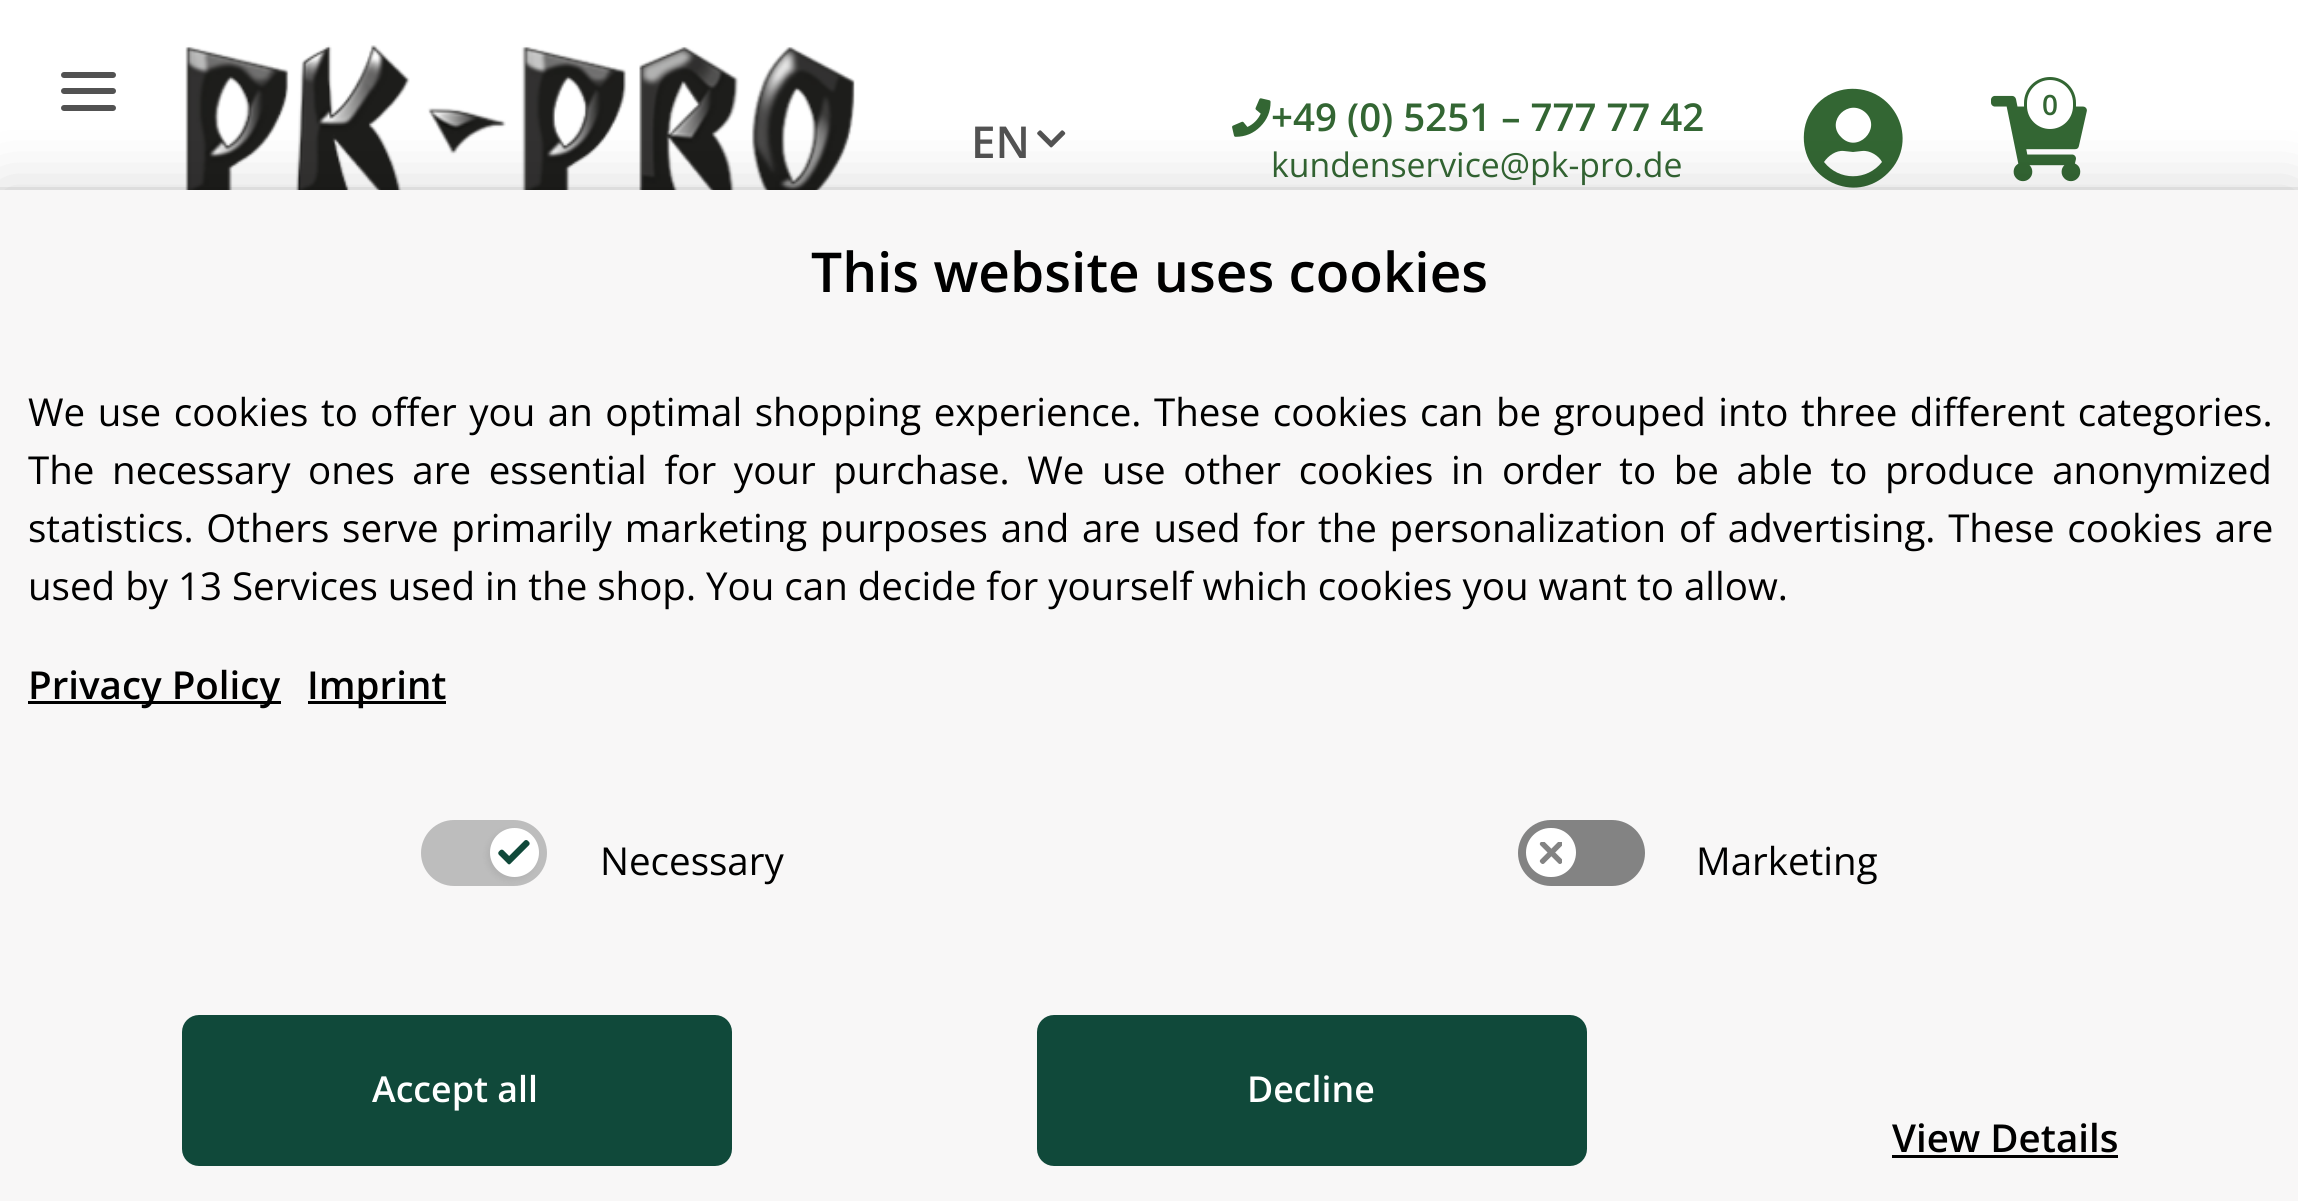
import math
import cairocffi as cairo

surface = cairo.ImageSurface(cairo.FORMAT_RGB24, 2298, 1201)
ctx = cairo.Context(surface)
options = cairo.FontOptions()
options.set_hint_metrics(cairo.HINT_METRICS_OFF)
options.set_hint_style(cairo.HINT_STYLE_NONE)
ctx.set_font_options(options)
ctx.set_miter_limit(4)


def rgb(r, g, b):
    ctx.set_source_rgb(r / 255, g / 255, b / 255)


def face(family, size, italic, bold):
    ctx.select_font_face(family, cairo.FONT_SLANT_ITALIC if italic else cairo.FONT_SLANT_NORMAL, cairo.FONT_WEIGHT_BOLD if bold else cairo.FONT_WEIGHT_NORMAL)
    ctx.set_font_size(size)


def label(x, y, s):
    ctx.move_to(x, y)
    ctx.show_text(s)


def tracked(x, y, s, letter, word):
    ctx.move_to(x, y)
    for ch in s:
        ctx.show_text(ch)
        ctx.rel_move_to(letter + word * (ch == ' '), 0)


def rect(x, y, w, h):
    ctx.rectangle(x, y, w, h)
    ctx.fill()


def rrect(x, y, w, h, r):
    ctx.new_sub_path()
    for i, (u, v) in enumerate([(x + w - r, y + h - r), (x + r, y + h - r), (x + r, y + r), (x + w - r, y + r)]):
        ctx.arc(u, v, r, i * math.pi / 2, (i + 1) * math.pi / 2)
    ctx.close_path()


def soft_shadow(x, y, w, h, r, blur, alpha):
    ctx.push_group_with_content(cairo.CONTENT_ALPHA)
    ctx.set_operator(cairo.OPERATOR_SOURCE)
    for i in range(15, -16, -2):
        e = blur * i / 6
        if min(w, h) + 2 * e > 0:
            ctx.set_source_rgba(0, 0, 0, alpha * math.erfc((i - 1) / 8.5) / 2)
            rrect(x - e, y - e, w + 2 * e, h + 2 * e, max(0, min(r + e + blur * .6, min(w, h) / 2 + e)))
            ctx.fill()
    ctx.mask(ctx.pop_group())


def image(path, x, y, w, h):
    ctx.save()
    ctx.set_source_surface(cairo.ImageSurface.create_from_png(path), x, y)
    ctx.rectangle(x, y, w, h)
    ctx.fill()
    ctx.restore()


rgb(255, 255, 255)
ctx.paint()
rgb(82, 82, 82)
rrect(61, 88, 55, 6, 3)
ctx.fill()
rrect(61, 72, 55, 6, 3)
ctx.fill()
rrect(61, 105, 55, 6, 3)
ctx.fill()
image('image0.png', 185, 45, 670, 145)
face('Open Sans SemiBold', 44, 0, 0)
label(971, 158, 'EN')
image('image1.png', 1037, 130, 29, 18)
image('image2.png', 1232, 98, 39, 39)
face('Open Sans SemiBold', 38.5, 0, 0)
rgb(51, 102, 51)
label(1271, 131, '+49 (0) 5251 – 777 77 42')
face('Open Sans', 33.75, 0, 0)
label(1271, 177, 'kundenservice@pk-pro.de')
ctx.new_path()
ctx.move_to(1818, 103)
ctx.curve_to(1826, 95, 1837, 90, 1848, 89)
ctx.curve_to(1894, 85, 1921, 140, 1888, 173)
ctx.curve_to(1855, 206, 1800, 179, 1804, 133)
ctx.curve_to(1805, 121, 1810, 111, 1818, 103)
ctx.close_path()
ctx.move_to(1866, 113)
ctx.curve_to(1849, 97, 1825, 121, 1841, 137)
ctx.curve_to(1857, 154, 1882, 129, 1866, 113)
ctx.close_path()
ctx.move_to(1824, 162)
ctx.curve_to(1839, 181, 1867, 181, 1882, 162)
ctx.curve_to(1879, 156, 1870, 150, 1862, 151)
ctx.line_to(1853, 152)
ctx.line_to(1844, 151)
ctx.curve_to(1836, 150, 1828, 156, 1824, 162)
ctx.close_path()
ctx.fill()
image('image3.png', 1991, 95, 96, 87)
rgb(255, 255, 255)
rrect(2025.5, 78.5, 49, 52, 24.5)
ctx.fill_preserve()
rgb(51, 102, 51)
ctx.set_line_width(3)
ctx.stroke()
face('Open Sans SemiBold', 28, 0, 0)
label(2042, 115, '0')
ctx.rectangle(-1.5, 188.5, 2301, 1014)
ctx.set_source_rgba(0, 0, 0, 0.06)
ctx.stroke()
rgb(0, 0, 0)
soft_shadow(0, 190, 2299, 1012, 0, 33, 0.16)
rgb(248, 247, 247)
rect(0, 190, 2298, 1011)
face('Open Sans SemiBold', 55, 0, 0)
rgb(0, 0, 0)
label(811, 292, 'This website uses cookies')
face('Open Sans', 38.5, 0, 0)
tracked(28, 426, 'We use cookies to offer you an optimal shopping experience. These cookies can be grouped into three different categories.', 0, 2.5)
tracked(28, 484, 'The necessary ones are essential for your purchase. We use other cookies in order to be able to produce anonymized', 0, 7.6)
tracked(28, 542, 'statistics. Others serve primarily marketing purposes and are used for the personalization of advertising. These cookies are', 0, 2.75)
label(28, 600, 'used by 13 Services used in the shop. You can decide for yourself which cookies you want to allow.')
rect(28, 701, 253, 3)
face('Open Sans SemiBold', 38.5, 0, 0)
label(28, 699, 'Privacy Policy')
rect(308, 701, 138, 3)
label(307, 699, 'Imprint')
rgb(189, 189, 189)
rrect(421, 820, 126, 66, 33)
ctx.fill()
rgb(163, 163, 163)
soft_shadow(487, 831, 49, 49, 24.5, 3, 0.45)
rgb(255, 255, 255)
ctx.arc(514.5, 852.5, 24.5, 0, 2 * math.pi)
ctx.fill()
image('image4.png', 498, 840, 32, 25)
face('Open Sans', 38.5, 0, 0)
rgb(0, 0, 0)
label(600, 875, 'Necessary')
rgb(131, 131, 131)
rrect(1518, 820, 127, 66, 33)
ctx.fill()
rgb(255, 255, 255)
rrect(1526, 828, 50, 49, 24.5)
ctx.fill()
image('image5.png', 1539, 842, 23, 22)
rgb(0, 0, 0)
label(1696, 875, 'Marketing')
rgb(16, 73, 58)
rrect(185, 1018, 544, 145, 14)
ctx.fill_preserve()
ctx.set_line_width(6)
ctx.stroke()
face('Open Sans SemiBold', 35.75, 0, 0)
rgb(255, 255, 255)
label(372, 1102, 'Accept all')
rgb(16, 73, 58)
rrect(1040, 1018, 544, 145, 14)
ctx.fill_preserve()
ctx.stroke()
rgb(255, 255, 255)
label(1247, 1102, 'Decline')
face('Open Sans SemiBold', 38.5, 0, 0)
rgb(0, 0, 0)
label(1892, 1152, 'View Details')
rect(1892, 1155, 226, 3)
surface.write_to_png('render.png')
